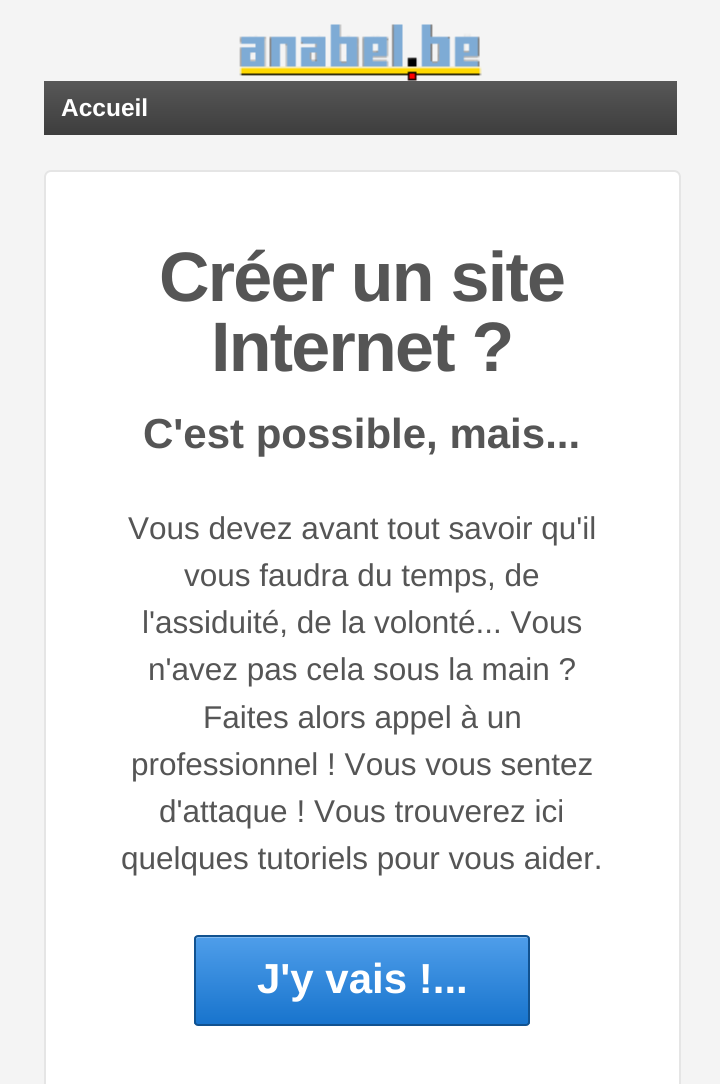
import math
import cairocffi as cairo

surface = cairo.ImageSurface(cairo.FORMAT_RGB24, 720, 1084)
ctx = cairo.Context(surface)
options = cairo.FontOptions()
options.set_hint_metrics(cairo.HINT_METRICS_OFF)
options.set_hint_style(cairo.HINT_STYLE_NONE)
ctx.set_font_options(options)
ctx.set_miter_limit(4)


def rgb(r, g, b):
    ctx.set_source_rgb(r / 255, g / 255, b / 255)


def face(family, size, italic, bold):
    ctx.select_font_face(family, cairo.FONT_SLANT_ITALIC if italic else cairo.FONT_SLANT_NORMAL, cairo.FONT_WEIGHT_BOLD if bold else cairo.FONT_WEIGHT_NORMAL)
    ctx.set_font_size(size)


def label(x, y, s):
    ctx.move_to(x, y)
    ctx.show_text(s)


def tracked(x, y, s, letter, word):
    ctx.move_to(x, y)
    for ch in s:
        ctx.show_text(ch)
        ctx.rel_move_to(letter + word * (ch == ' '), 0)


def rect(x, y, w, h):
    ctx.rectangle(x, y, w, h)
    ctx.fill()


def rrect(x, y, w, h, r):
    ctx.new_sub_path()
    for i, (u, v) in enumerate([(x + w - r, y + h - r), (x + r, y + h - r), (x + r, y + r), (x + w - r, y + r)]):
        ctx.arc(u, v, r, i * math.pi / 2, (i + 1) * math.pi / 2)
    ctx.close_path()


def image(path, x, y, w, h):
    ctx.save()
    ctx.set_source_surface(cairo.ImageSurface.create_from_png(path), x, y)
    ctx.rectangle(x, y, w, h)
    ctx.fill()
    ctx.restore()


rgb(244, 244, 244)
ctx.paint()
image('image0.png', 239, 24, 243, 57)
gradient = cairo.LinearGradient(361, 80, 361, 135)
gradient.add_color_stop_rgba(0, 0.345, 0.345, 0.345, 1)
gradient.add_color_stop_rgba(1, 0.239, 0.239, 0.239, 1)
ctx.set_source(gradient)
rect(44, 81, 633, 54)
face('Liberation Sans', 24.5, 0, 1)
rgb(255, 255, 255)
label(61, 116, 'Accueil')
rrect(45, 171, 635, 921, 6)
ctx.fill_preserve()
rgb(229, 229, 229)
ctx.stroke()
face('Liberation Sans', 70, 0, 1)
rgb(85, 85, 85)
tracked(159, 301, 'Créer un site', -1.75, 0)
tracked(211, 371, 'Internet ?', -1.75, 0)
face('Liberation Sans', 42, 0, 1)
label(143, 448, 'C\'est possible, mais...')
face('Liberation Sans', 31.5, 0, 0)
label(128, 539, 'Vous devez avant tout savoir qu\'il')
label(184, 586, 'vous faudra du temps, de')
label(142, 633, 'l\'assiduité, de la volonté... Vous')
label(148, 680, 'n\'avez pas cela sous la main ?')
label(203, 728, 'Faites alors appel à un')
label(131, 775, 'professionnel ! Vous vous sentez')
label(159, 822, 'd\'attaque ! Vous trouverez ici')
label(121, 869, 'quelques tutoriels pour vous aider.')
ctx.save()
rrect(194, 935, 336, 91, 4)
ctx.clip()
gradient = cairo.LinearGradient(362, 936, 362, 1024)
gradient.add_color_stop_rgba(0, 0.31, 0.62, 0.918, 1)
gradient.add_color_stop_rgba(1, 0.094, 0.455, 0.804, 1)
ctx.set_source(gradient)
rect(194, 936, 336, 88)
ctx.restore()
ctx.set_source_rgba(1, 1, 1, 0.3)
ctx.new_path()
ctx.move_to(198, 938)
ctx.line_to(527, 938)
ctx.curve_to(528, 938, 528, 939, 528, 940)
ctx.line_to(528, 1024)
ctx.curve_to(529, 1023, 529, 1023, 529, 1022)
ctx.line_to(529, 938)
ctx.curve_to(529, 937, 528, 936, 527, 936)
ctx.line_to(198, 936)
ctx.curve_to(197, 936, 196, 937, 196, 938)
ctx.line_to(196, 940)
ctx.curve_to(196, 939, 197, 938, 198, 938)
ctx.close_path()
ctx.fill()
rrect(195, 936, 334, 89, 3)
rgb(17, 82, 144)
ctx.stroke()
face('Liberation Sans', 42, 0, 1)
rgb(255, 255, 255)
label(257, 993, 'J\'y vais !...')
surface.write_to_png('render.png')
